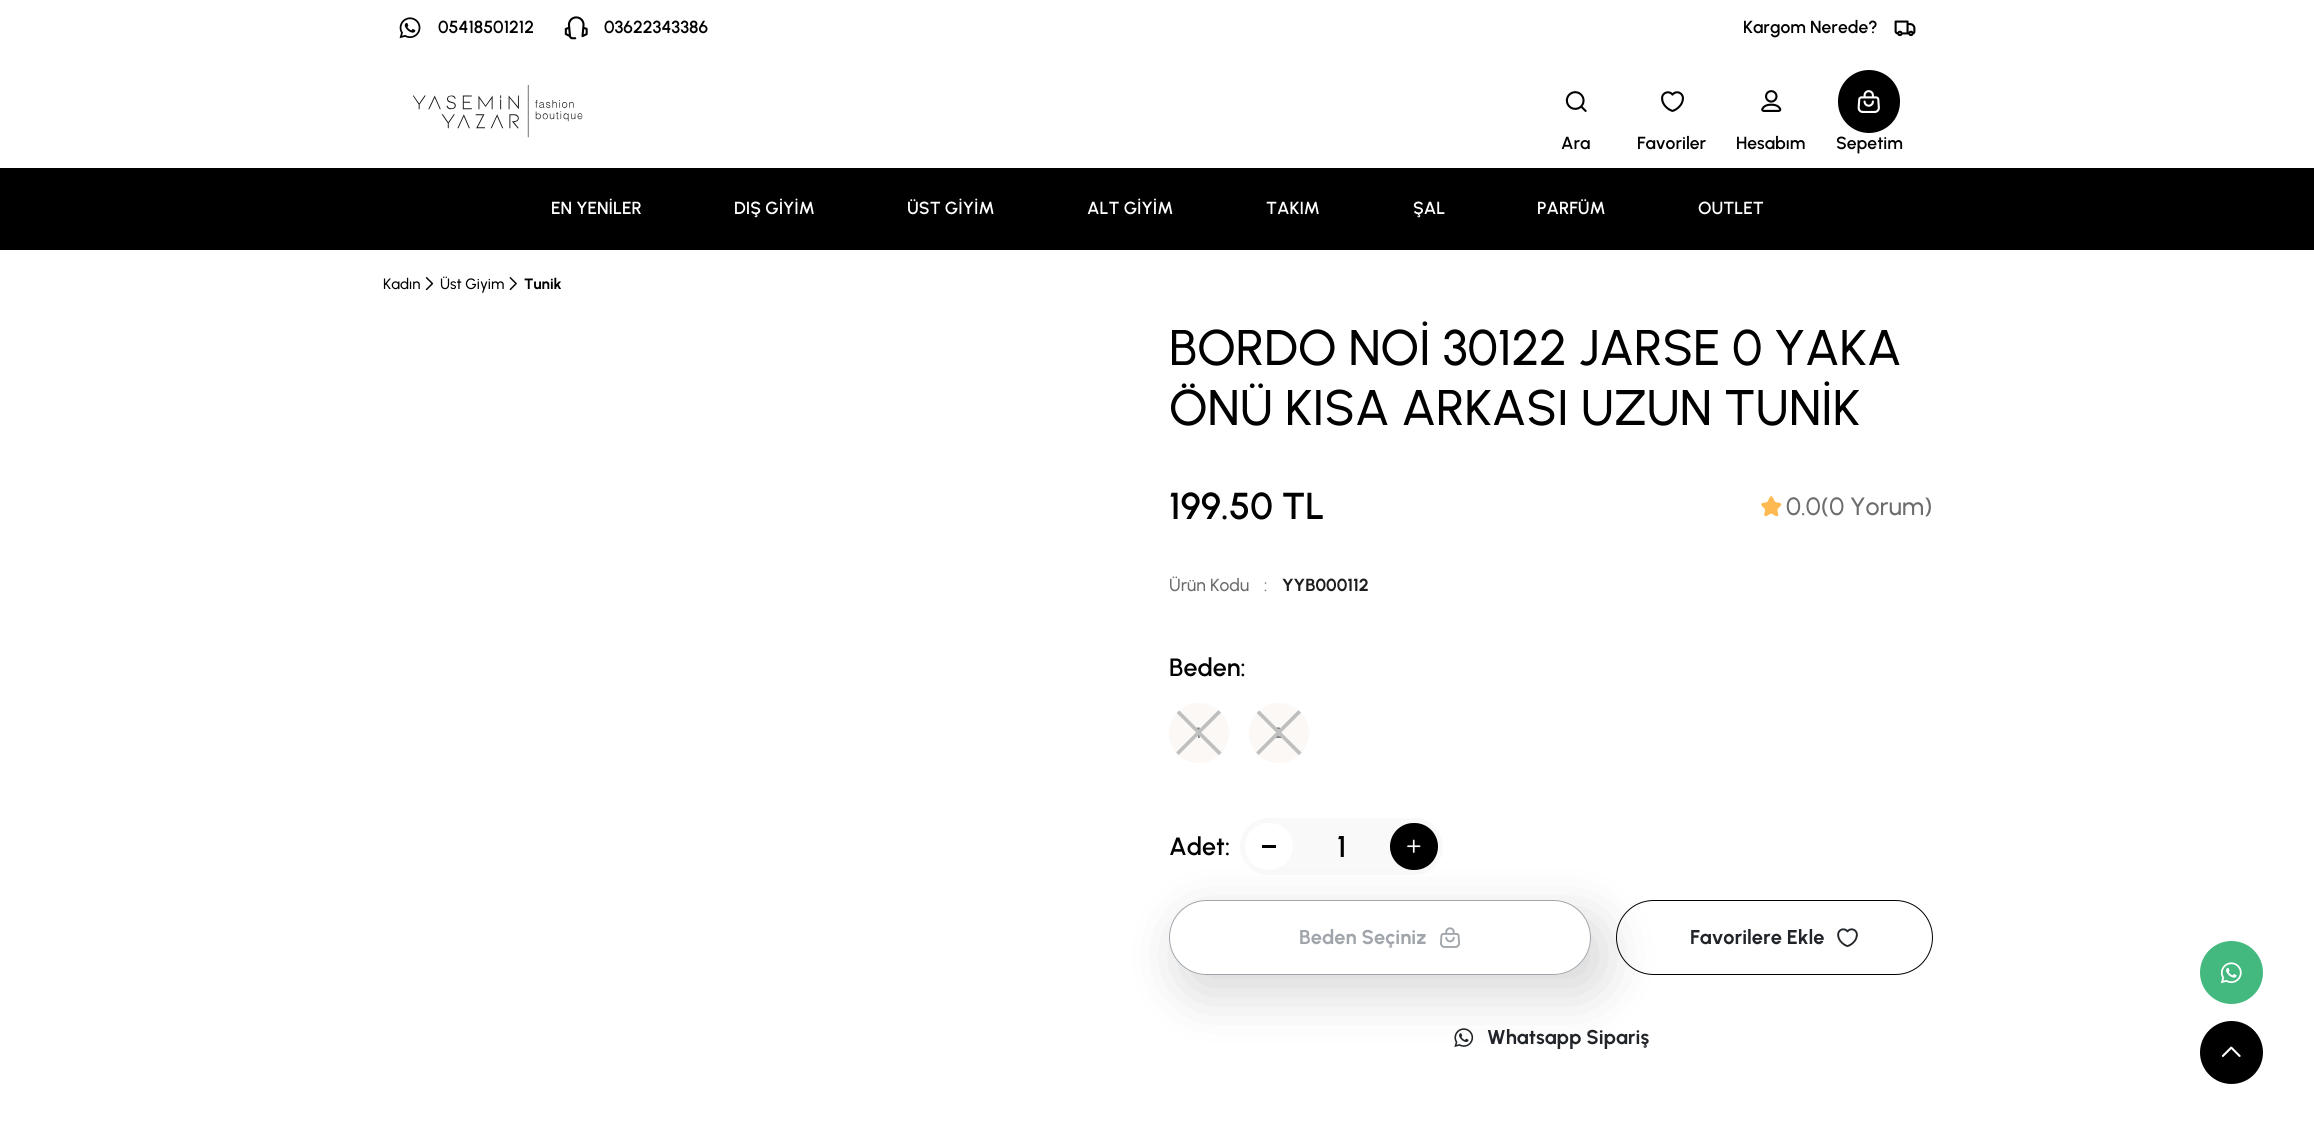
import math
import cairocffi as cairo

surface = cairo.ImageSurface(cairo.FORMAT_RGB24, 2314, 1136)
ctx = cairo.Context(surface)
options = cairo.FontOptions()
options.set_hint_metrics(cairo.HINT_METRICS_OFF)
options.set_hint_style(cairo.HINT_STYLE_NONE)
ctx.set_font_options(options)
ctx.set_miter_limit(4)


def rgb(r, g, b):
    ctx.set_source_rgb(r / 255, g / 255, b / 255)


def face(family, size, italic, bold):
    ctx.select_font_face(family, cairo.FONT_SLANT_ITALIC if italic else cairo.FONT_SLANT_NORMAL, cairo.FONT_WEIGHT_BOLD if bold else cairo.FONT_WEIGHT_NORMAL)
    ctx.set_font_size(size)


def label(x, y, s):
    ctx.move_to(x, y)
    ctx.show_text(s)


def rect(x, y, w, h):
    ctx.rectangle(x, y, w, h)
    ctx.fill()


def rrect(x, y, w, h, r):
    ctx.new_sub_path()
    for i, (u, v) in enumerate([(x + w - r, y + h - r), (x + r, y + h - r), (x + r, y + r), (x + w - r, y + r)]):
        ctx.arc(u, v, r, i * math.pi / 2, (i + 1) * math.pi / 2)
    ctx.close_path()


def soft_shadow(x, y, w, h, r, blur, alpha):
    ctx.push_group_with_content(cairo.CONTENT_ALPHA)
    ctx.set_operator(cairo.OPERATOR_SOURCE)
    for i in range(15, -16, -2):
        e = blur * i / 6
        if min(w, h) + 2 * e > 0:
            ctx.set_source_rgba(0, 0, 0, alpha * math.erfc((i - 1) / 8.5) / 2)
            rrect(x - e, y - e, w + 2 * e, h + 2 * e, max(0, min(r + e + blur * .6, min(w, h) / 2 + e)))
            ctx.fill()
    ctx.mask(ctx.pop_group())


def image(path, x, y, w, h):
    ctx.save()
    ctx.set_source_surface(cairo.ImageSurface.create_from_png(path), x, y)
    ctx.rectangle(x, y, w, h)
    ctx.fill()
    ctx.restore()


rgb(255, 255, 255)
ctx.paint()
image('image0.png', 399, 17, 22, 22)
face('Urbanist SemiBold', 17.5, 0, 0)
rgb(0, 0, 0)
label(438, 33, '05418501212')
image('image1.png', 564, 16, 24, 24)
label(604, 33, '03622343386')
label(1743, 33, 'Kargom Nerede?')
image('image2.png', 1894, 20, 22, 17)
image('image3.png', 413, 85, 170, 53)
image('image4.png', 1565, 91, 22, 21)
label(1561, 149, 'Ara')
image('image5.png', 1661, 91, 23, 21)
label(1637, 149, 'Favoriler')
image('image6.png', 1761, 90, 21, 22)
label(1736, 149, 'Hesabım')
rrect(1838, 70, 62, 63, 31)
ctx.fill()
image('image7.png', 1857, 90, 23, 23)
label(1836, 149, 'Sepetim')
rect(0, 168, 2314, 82)
rgb(255, 255, 255)
label(551, 214, 'EN YENİLER')
label(734, 214, 'DIŞ GİYİM')
label(907, 214, 'ÜST GİYİM')
label(1087, 214, 'ALT GİYİM')
label(1266, 214, 'TAKIM')
label(1413, 214, 'ŞAL')
label(1537, 214, 'PARFÜM')
label(1698, 214, 'OUTLET')
face('Urbanist Medium', 15, 0, 0)
rgb(0, 0, 0)
label(383, 289, 'Kadın')
image('image8.png', 425, 277, 9, 14)
label(440, 289, 'Üst Giyim')
image('image9.png', 509, 277, 8, 14)
face('Urbanist', 15, 0, 1)
label(524, 289, 'Tunik')
face('Urbanist Medium', 50, 0, 0)
label(1169, 365, 'BORDO NOİ 30122 JARSE 0 YAKA')
label(1169, 425, 'ÖNÜ KISA ARKASI UZUN TUNİK')
face('Urbanist SemiBold', 37.5, 0, 0)
label(1169, 519, '199.50 TL')
image('image10.png', 1761, 496, 21, 21)
face('Urbanist Medium', 25, 0, 0)
rgb(108, 108, 108)
label(1786, 515, '0.0(0 Yorum)')
face('Urbanist Medium', 17.5, 0, 0)
label(1169, 591, 'Ürün Kodu')
label(1264, 591, ':')
face('Urbanist', 17.5, 0, 1)
rgb(30, 30, 30)
label(1282, 591, 'YYB000112')
face('Urbanist SemiBold', 25, 0, 0)
rgb(0, 0, 0)
label(1169, 676, 'Beden:')
rgb(251, 248, 245)
ctx.new_path()
ctx.arc(1199, 733, 30, 0, 2 * math.pi)
ctx.fill()
face('Urbanist', 15, 0, 1)
rgb(128, 128, 128)
label(1196, 738, '1')
ctx.save()
rrect(1169, 703, 60, 60, 30)
ctx.clip()
face('Urbanist Thin', 122, 0, 0)
rgb(191, 191, 191)
label(1171, 769, '×')
ctx.restore()
rgb(251, 248, 245)
ctx.new_path()
ctx.arc(1279, 733, 30, 0, 2 * math.pi)
ctx.fill()
rgb(128, 128, 128)
label(1274, 738, '2')
ctx.save()
rrect(1249, 703, 60, 60, 30)
ctx.clip()
face('Urbanist Thin', 122, 0, 0)
rgb(191, 191, 191)
label(1251, 769, '×')
ctx.restore()
face('Urbanist SemiBold', 25, 0, 0)
rgb(0, 0, 0)
label(1169, 855, 'Adet:')
rgb(249, 249, 249)
rrect(1240, 818, 203, 57, 28.5)
ctx.fill()
rgb(255, 255, 255)
rrect(1245, 823, 48, 47, 23.5)
ctx.fill()
rgb(0, 0, 0)
rect(1262, 845, 14, 3)
face('Urbanist SemiBold', 30, 0, 0)
label(1337, 857, '1')
rrect(1390, 823, 48, 47, 23.5)
ctx.fill()
image('image11.png', 1407, 839, 14, 14)
image('image14.png', 1454, 1028, 20, 19)
ctx.save()
ctx.set_fill_rule(cairo.FILL_RULE_EVEN_ODD)
ctx.new_path()
ctx.move_to(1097, 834)
ctx.line_to(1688, 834)
ctx.line_to(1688, 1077)
ctx.line_to(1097, 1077)
ctx.close_path()
ctx.move_to(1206.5, 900)
ctx.line_to(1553.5, 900)
ctx.curve_to(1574, 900, 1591, 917, 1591, 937.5)
ctx.curve_to(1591, 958, 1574, 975, 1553.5, 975)
ctx.line_to(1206.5, 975)
ctx.curve_to(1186, 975, 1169, 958, 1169, 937.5)
ctx.curve_to(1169, 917, 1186, 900, 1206.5, 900)
ctx.close_path()
ctx.clip()
rgb(0, 0, 0)
soft_shadow(1181, 918, 423, 75, 37.5, 27.5, 0.16)
ctx.restore()
rrect(1169.5, 900.5, 421, 74, 37)
rgb(159, 165, 171)
ctx.set_line_width(1)
ctx.stroke()
face('Urbanist', 20, 0, 1)
label(1299, 944, 'Beden Seçiniz')
image('image12.png', 1440, 927, 20, 21)
rrect(1616.5, 900.5, 316, 74, 37)
rgb(0, 0, 0)
ctx.stroke()
rgb(33, 37, 41)
label(1690, 944, 'Favorilere Ekle')
image('image13.png', 1837, 928, 21, 19)
label(1487, 1044, 'Whatsapp Sipariş')
rgb(67, 185, 127)
ctx.new_path()
ctx.arc(2231.5, 972.5, 31.5, 0, 2 * math.pi)
ctx.fill()
image('image15.png', 2220, 962, 22, 22)
rgb(0, 0, 0)
ctx.arc(2231.5, 1052.5, 31.5, 0, 2 * math.pi)
ctx.fill()
image('image16.png', 2221, 1046, 20, 11)
surface.write_to_png('render.png')
